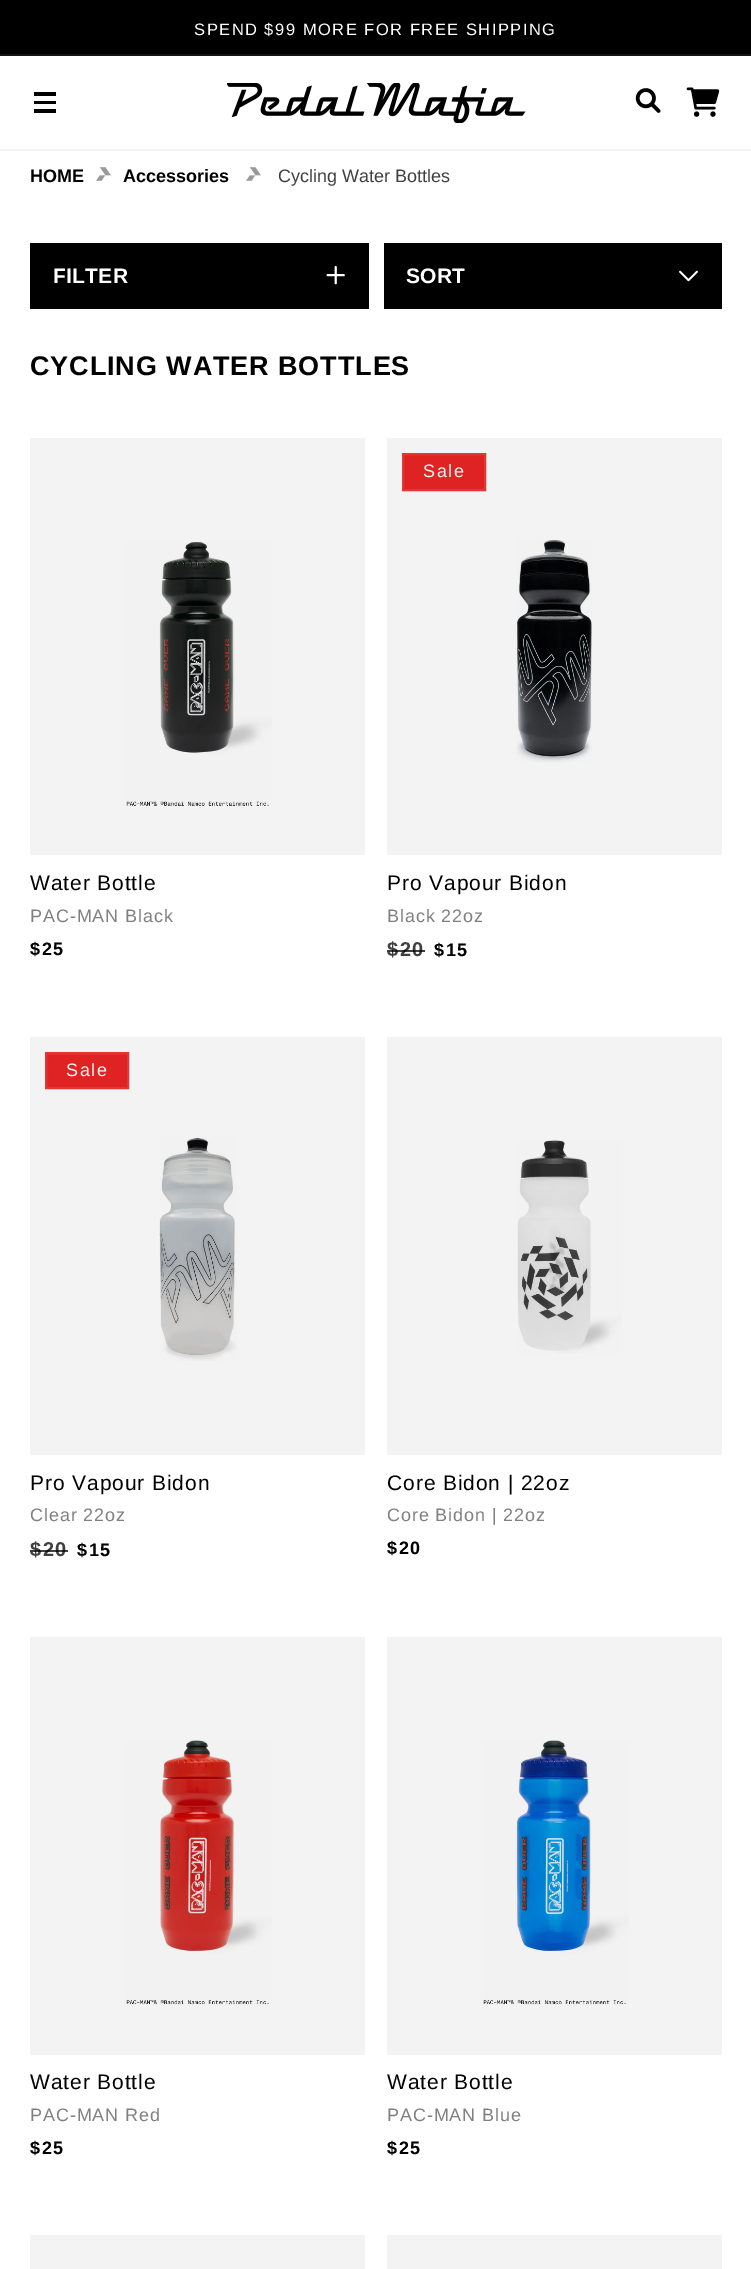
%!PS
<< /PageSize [751 2269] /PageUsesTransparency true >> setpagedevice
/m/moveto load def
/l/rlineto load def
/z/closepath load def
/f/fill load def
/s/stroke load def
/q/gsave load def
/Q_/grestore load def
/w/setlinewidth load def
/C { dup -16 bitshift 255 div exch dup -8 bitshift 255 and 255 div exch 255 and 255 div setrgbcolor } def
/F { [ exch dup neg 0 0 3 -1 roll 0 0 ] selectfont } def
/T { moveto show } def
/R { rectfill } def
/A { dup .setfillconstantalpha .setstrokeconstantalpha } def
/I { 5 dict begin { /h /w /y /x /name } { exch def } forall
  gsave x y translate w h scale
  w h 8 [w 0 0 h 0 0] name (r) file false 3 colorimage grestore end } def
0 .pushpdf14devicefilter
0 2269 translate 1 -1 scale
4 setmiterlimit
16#FFFFFF C
0 0 751 2269 R
16#000000 C
0 0 751 54 R
16#141414 C
0 54 751 2 R
/LiberationSans-Regular 16.5 F
16#FFFFFF C
194 35 m 1.5 0 (SPEND $99 MORE FOR FREE SHIPPING) ashow
16#F2F2F2 C
0 149 751 2 R
16#000000 C
34 92 22 4 R
34 101 22 3 R
34 109 22 4 R
(1.rgb) 227 83 299 40 I
(2.rgb) 635 88 26 25 I
(3.rgb) 686 87 34 30 I
/LiberationSans-Bold 18 F
(HOME) 30 182 T
(4.rgb) 96 167 15 14 I
(Accessories) 123 182 T
(4.rgb) 246 167 15 14 I
/LiberationSans-Regular 18 F
16#404040 C
(Cycling Water Bottles) 278 182 T
16#000000 C
30 243 339 66 R
/LiberationSans-Bold 21 F
16#FFFFFF C
53 283 m .25 0 (FILTER) ashow
(5.rgb) 326 265 19 20 I
16#000000 C
384 243 338 66 R
16#FFFFFF C
406 283 m .25 0 (SORT) ashow
(6.rgb) 679 270 19 12 I
/LiberationSans-Bold 27 F
16#000000 C
30 375 m .9 0 (CYCLING WATER BOTTLES) ashow
16#F3F3F3 C
30 438 335 417 R
(7.rgb) 126 542 146 264 I
/LiberationSans-Regular 21 F
16#000000 C
30 890 m .9 0 (Water Bottle) ashow
/LiberationSans-Regular 18 F
16#808080 C
30 922 m .9 0 (PAC-MAN Black) ashow
/LiberationSans-Bold 18 F
16#000000 C
30 955 m 1.5 0 ($25) ashow
16#F3F3F3 C
387 438 335 417 R
16#DF2222 C
403 454 m 82 0 l 0 36 l -82 0 l z q f Q_
16#E13737 C
2 w
s
/LiberationSans-Regular 18 F
16#F7F7F7 C
423 477 m 1.5 0 (Sale) ashow
(8.rgb) 516 539 76 224 I
/LiberationSans-Regular 21 F
16#000000 C
387 890 m .9 0 (Pro Vapour Bidon) ashow
/LiberationSans-Regular 18 F
16#808080 C
387 922 m .9 0 (Black 22oz) ashow
/LiberationSans-Bold 20 F
16#404040 C
387 956 m 1.5 0 ($20) ashow
0.75 A
16#000000 C
387 950 38 2 R
/LiberationSans-Bold 18 F
1 A
434 956 m 1.5 0 ($15) ashow
16#F3F3F3 C
30 1037 335 418 R
16#DF2222 C
46 1053 m 82 0 l 0 35 l -82 0 l z q f Q_
16#E13737 C
s
/LiberationSans-Regular 18 F
16#F7F7F7 C
66 1076 m 1.5 0 (Sale) ashow
(9.rgb) 159 1137 78 224 I
/LiberationSans-Regular 21 F
16#000000 C
30 1490 m .9 0 (Pro Vapour Bidon) ashow
/LiberationSans-Regular 18 F
16#808080 C
30 1521 m .9 0 (Clear 22oz) ashow
/LiberationSans-Bold 20 F
16#404040 C
30 1556 m 1.5 0 ($20) ashow
0.75 A
16#000000 C
30 1550 38 2 R
/LiberationSans-Bold 18 F
1 A
77 1556 m 1.5 0 ($15) ashow
16#F3F3F3 C
387 1037 335 418 R
(10.rgb) 517 1140 105 214 I
/LiberationSans-Regular 21 F
16#000000 C
387 1490 m .9 0 (Core Bidon | 22oz) ashow
/LiberationSans-Regular 18 F
16#808080 C
387 1521 m .9 0 (Core Bidon | 22oz) ashow
/LiberationSans-Bold 18 F
16#000000 C
387 1554 m 1.5 0 ($20) ashow
16#F3F3F3 C
30 1637 335 418 R
(11.rgb) 126 1740 146 265 I
/LiberationSans-Regular 21 F
16#000000 C
30 2089 m .9 0 (Water Bottle) ashow
/LiberationSans-Regular 18 F
16#808080 C
30 2121 m .9 0 (PAC-MAN Red) ashow
/LiberationSans-Bold 18 F
16#000000 C
30 2154 m 1.5 0 ($25) ashow
16#F3F3F3 C
387 1637 335 418 R
(12.rgb) 483 1740 146 265 I
/LiberationSans-Regular 21 F
16#000000 C
387 2089 m .9 0 (Water Bottle) ashow
/LiberationSans-Regular 18 F
16#808080 C
387 2121 m .9 0 (PAC-MAN Blue) ashow
/LiberationSans-Bold 18 F
16#000000 C
387 2154 m 1.5 0 ($25) ashow
16#F3F3F3 C
30 2235 335 34 R
387 2235 335 34 R
.poppdf14devicefilter showpage
